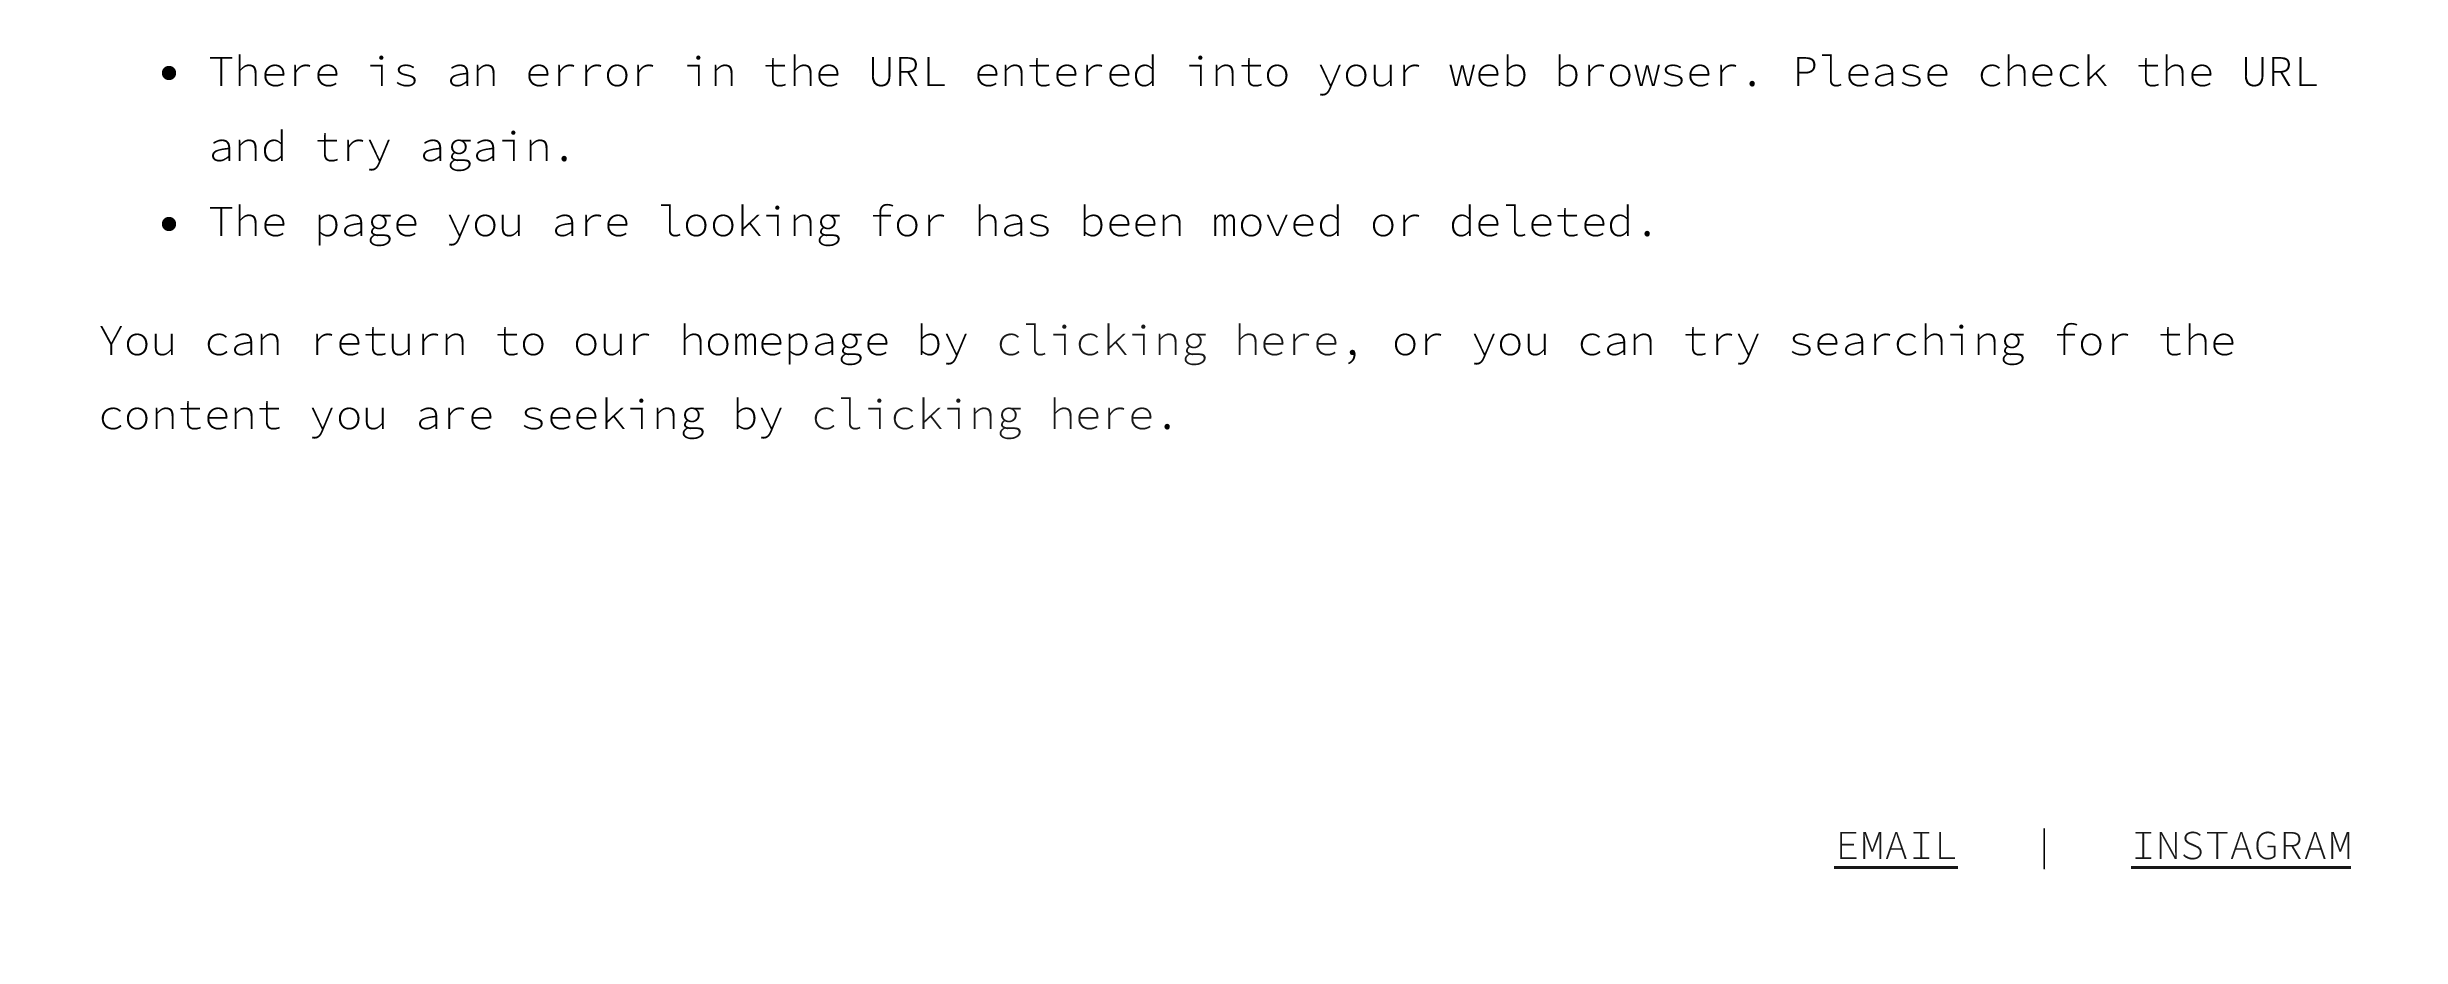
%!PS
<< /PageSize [2448 984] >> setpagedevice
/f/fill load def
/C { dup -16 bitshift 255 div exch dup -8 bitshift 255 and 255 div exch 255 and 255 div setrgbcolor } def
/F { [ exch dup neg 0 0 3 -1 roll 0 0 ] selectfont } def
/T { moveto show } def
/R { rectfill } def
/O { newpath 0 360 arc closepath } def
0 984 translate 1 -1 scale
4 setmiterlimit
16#FFFFFF C
0 0 2448 984 R
16#000000 C
169 73 7 O f
/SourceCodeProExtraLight-Light 44 F
(There is an error in the URL entered into your web browser. Please check the URL) 208 86 T
(and try again.) 208 161 T
169 224 7 O f
(The page you are looking for has been moved or deleted.) 208 236 T
(You can return to our homepage by) 98 355 T
16#171717 C
(clicking here) 996 355 T
16#000000 C
(, or you can try searching for the) 1339 355 T
(content you are seeking by) 98 429 T
16#171717 C
(clicking here) 811 429 T
16#000000 C
(.) 1154 429 T
/SourceCodeProExtraLight-Light 41 F
16#171717 C
(EMAIL) 1835 859 T
1834 866 124 3 R
16#000000 C
(|) 2032 859 T
16#171717 C
(INSTAGRAM) 2131 859 T
2131 866 220 3 R
showpage
